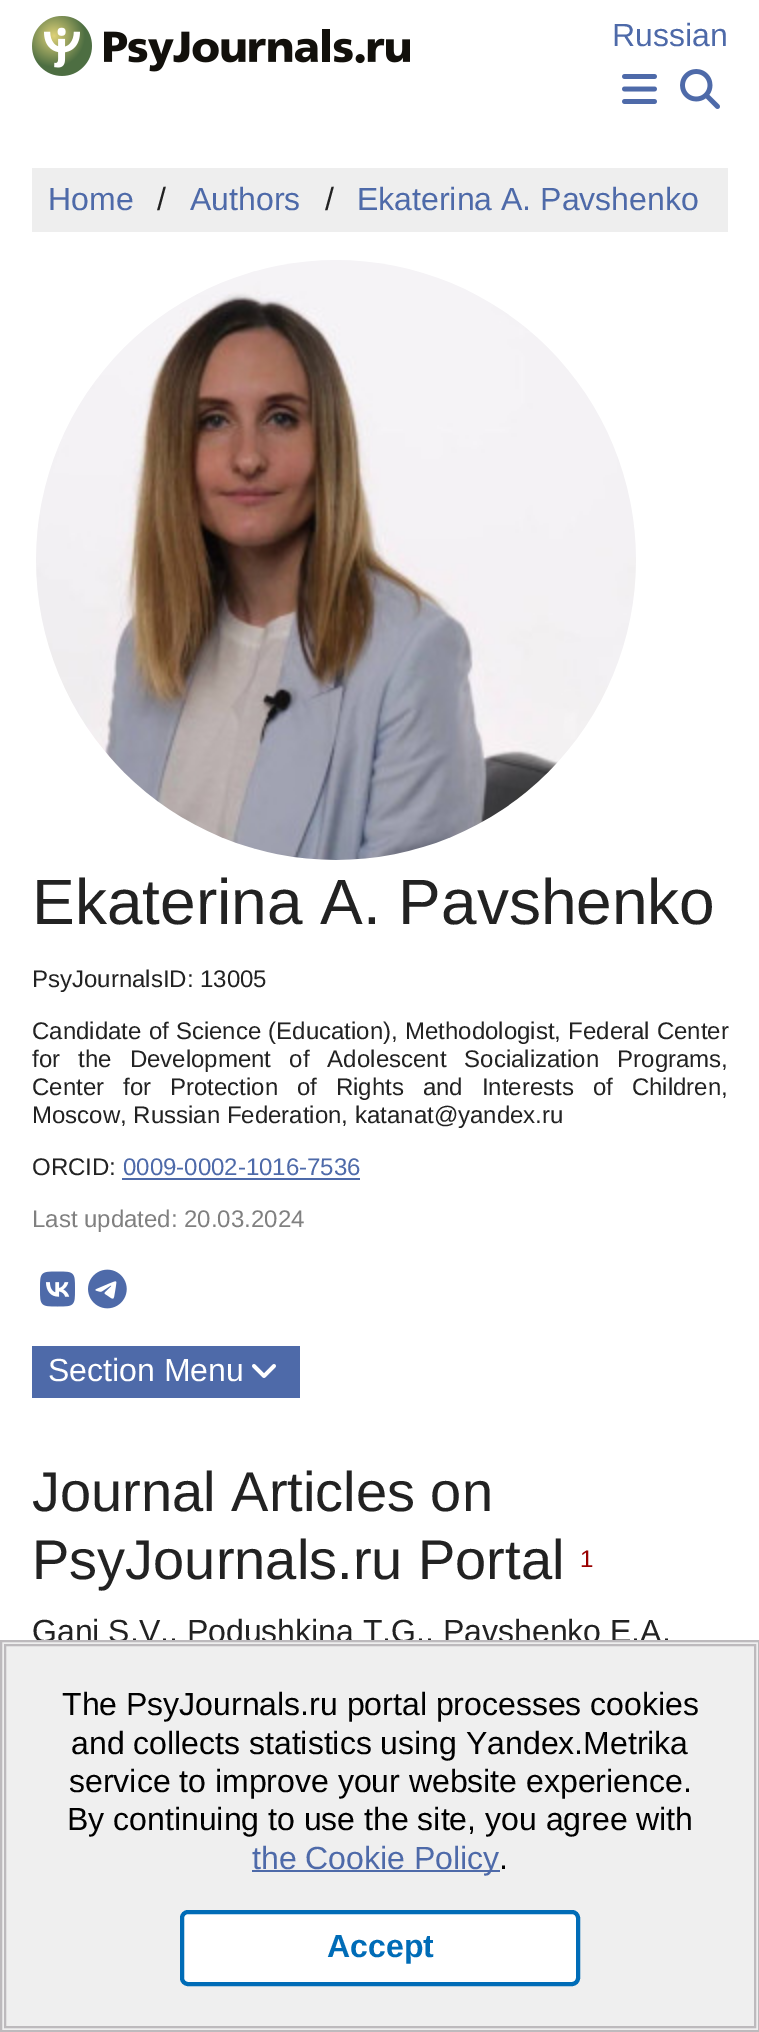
%!PS
<< /PageSize [759 2032] >> setpagedevice
/m/moveto load def
/l/rlineto load def
/z/closepath load def
/f/fill load def
/s/stroke load def
/q/gsave load def
/Q_/grestore load def
/w/setlinewidth load def
/C { dup -16 bitshift 255 div exch dup -8 bitshift 255 and 255 div exch 255 and 255 div setrgbcolor } def
/F { [ exch dup neg 0 0 3 -1 roll 0 0 ] selectfont } def
/T { moveto show } def
/R { rectfill } def
/Q { 5 dict begin { /r /h /w /y /x } { exch def } forall
  x r add y moveto x w add y 2 copy h add r arct x w add y h add x 1 index r arct
  x y h add x y r arct x y 2 copy exch w add exch r arct closepath end } def
/I { 5 dict begin { /h /w /y /x /name } { exch def } forall
  gsave x y translate w h scale
  w h 8 [w 0 0 h 0 0] name (r) file false 3 colorimage grestore end } def
0 2032 translate 1 -1 scale
4 setmiterlimit
16#FFFFFF C
0 0 759 2032 R
(1.rgb) 32 16 378 60 I
/LiberationSans-Regular 32 F
16#4E6AA9 C
(Russian) 612 46 T
(2.rgb) 622 74 35 30 I
(3.rgb) 680 69 40 40 I
16#EEEEEE C
32 168 696 64 R
16#4E6AA9 C
(Home) 48 210 T
16#222222 C
(/) 157 210 T
16#4E6AA9 C
(Authors) 190 210 T
16#222222 C
(/) 325 210 T
16#4E6AA9 C
(Ekaterina A. Pavshenko) 357 210 T
(4.rgb) 36 260 600 600 I
/LiberationSans-Regular 64 F
16#222222 C
(Ekaterina A. Pavshenko) 32 924 T
/LiberationSans-Regular 24 F
(PsyJournalsID: 13005) 32 987 T
32 1039 m .5 0 32 (Candidate of Science \(Education\), Methodologist, Federal Center) widthshow
32 1067 m 11.5 0 32 (for the Development of Adolescent Socialization Programs,) widthshow
32 1095 m 12.25 0 32 (Center for Protection of Rights and Interests of Children,) widthshow
(Moscow, Russian Federation, katanat@yandex.ru) 32 1123 T
(ORCID:) 32 1175 T
16#4E6AA9 C
(0009-0002-1016-7536) 123 1175 T
122 1178 238 2 R
16#808080 C
(Last updated: 20.03.2024) 32 1227 T
(5.rgb) 40 1271 35 36 I
(6.rgb) 88 1269 39 40 I
16#4E6AA9 C
32 1346 268 52 R
/LiberationSans-Regular 32 F
16#FFFFFF C
(Section Menu) 48 1381 T
(7.rgb) 252 1364 24 14 I
/LiberationSans-Regular 56 F
16#222222 C
(Journal Articles on) 32 1511 T
(PsyJournals.ru Portal) 32 1579 T
/LiberationSans-Regular 24 F
16#990000 C
(1) 580 1567 T
/LiberationSans-Regular 32 F
16#222222 C
(Gani S.V., Podushkina T.G., Pavshenko E.A.) 32 1642 T
16#EFEFEF C
1 1641 m 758 0 l 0 390 l -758 0 l z q f Q_
16#BDBABD C
2 w
s
5 1645 750 382 rectstroke
16#000000 C
(The PsyJournals.ru portal processes cookies) 62 1715 T
(and collects statistics using Yandex.Metrika) 71 1754 T
(service to improve your website experience.) 69 1792 T
(By continuing to use the site, you agree with) 67 1830 T
16#4E6AA9 C
252 1870 248 2 R
(the Cookie Policy) 252 1869 T
16#000000 C
(.) 499 1869 T
16#FFFFFF C
182 1912 396 72 6 Q q f Q_
16#006CB7 C
4 w
s
/LiberationSans-Bold 32 F
(Accept) 327 1957 T
showpage
